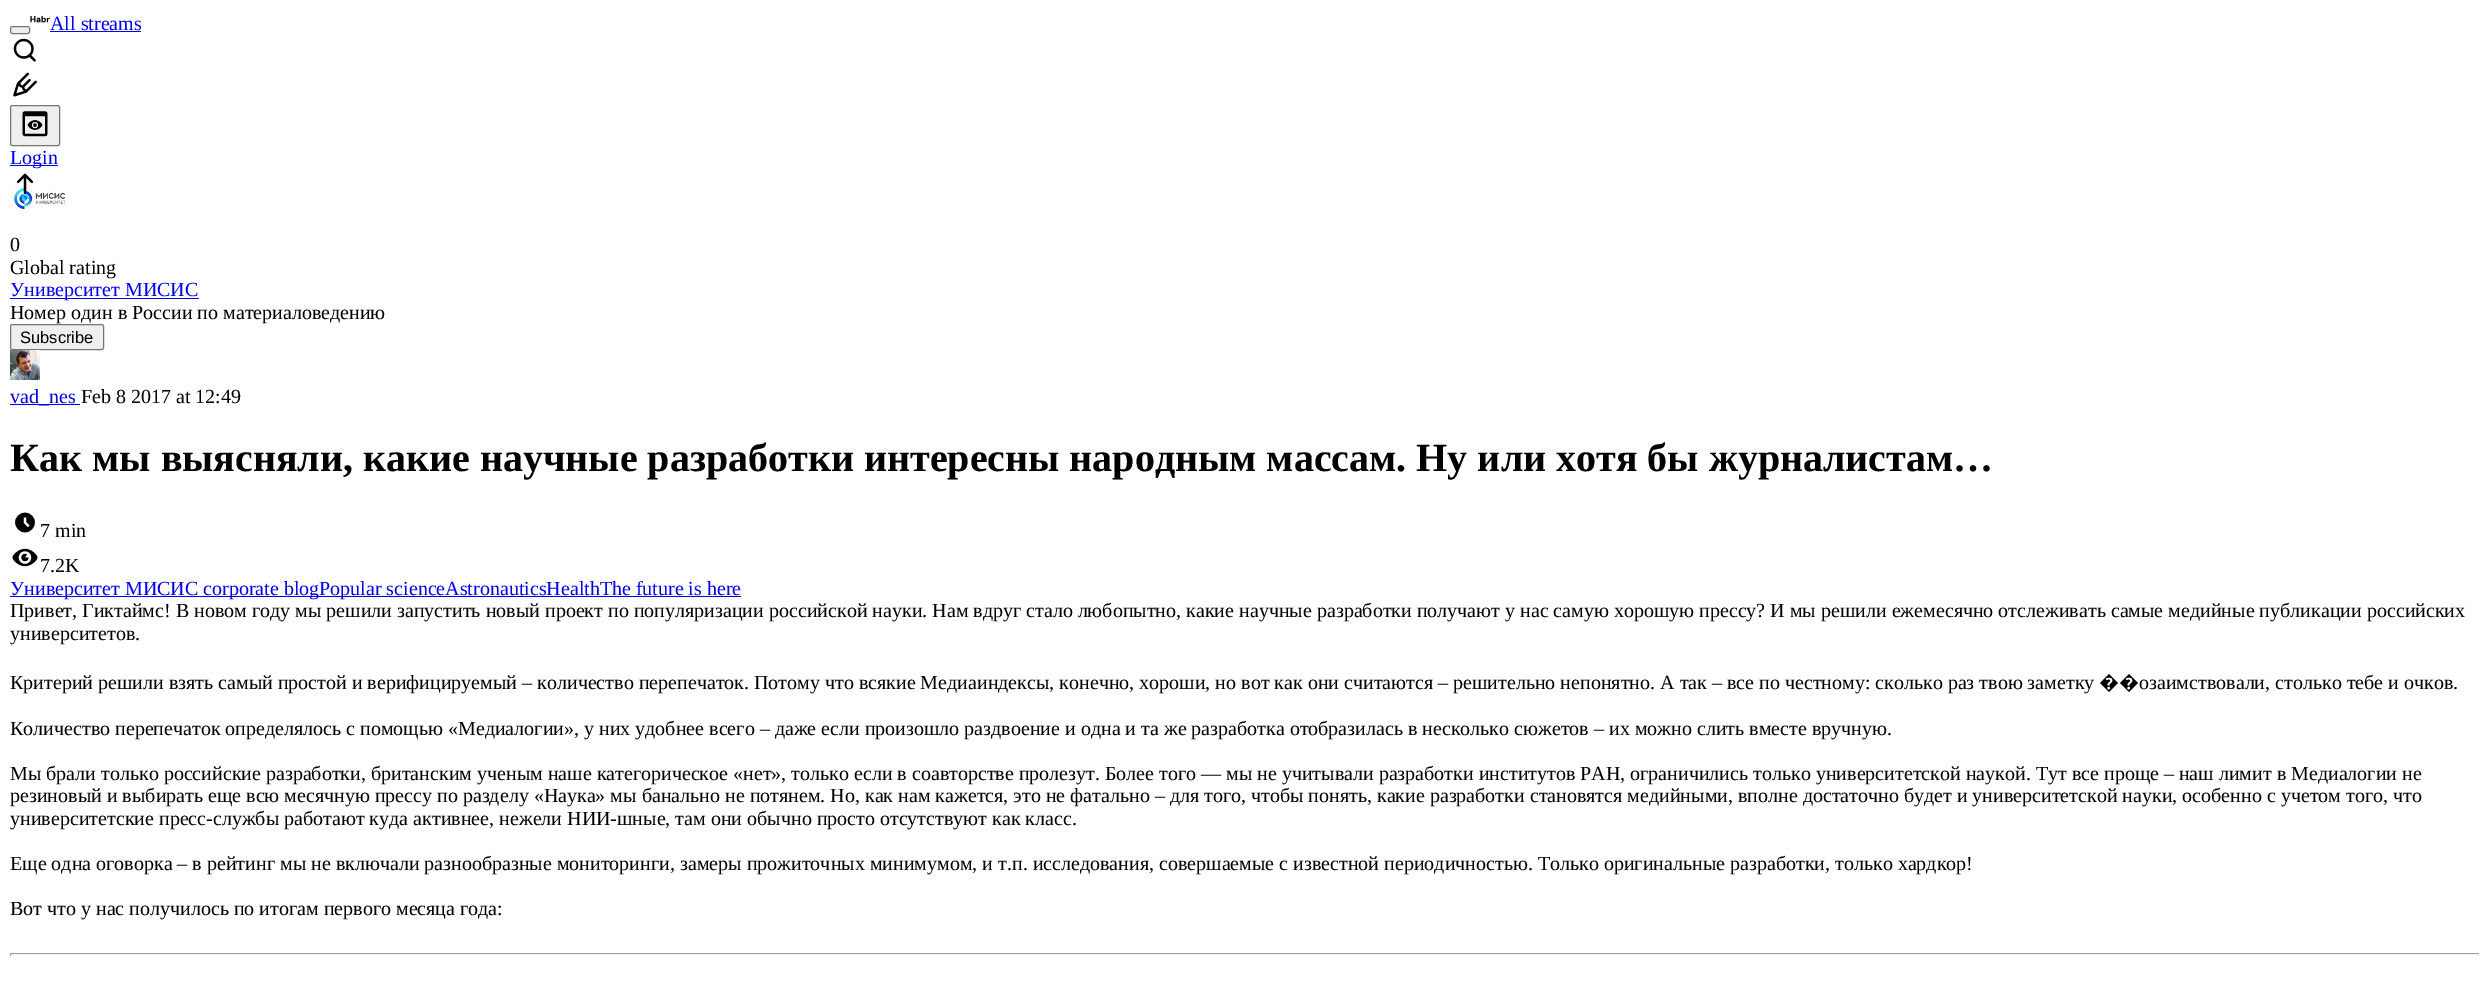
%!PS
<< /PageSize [2489 990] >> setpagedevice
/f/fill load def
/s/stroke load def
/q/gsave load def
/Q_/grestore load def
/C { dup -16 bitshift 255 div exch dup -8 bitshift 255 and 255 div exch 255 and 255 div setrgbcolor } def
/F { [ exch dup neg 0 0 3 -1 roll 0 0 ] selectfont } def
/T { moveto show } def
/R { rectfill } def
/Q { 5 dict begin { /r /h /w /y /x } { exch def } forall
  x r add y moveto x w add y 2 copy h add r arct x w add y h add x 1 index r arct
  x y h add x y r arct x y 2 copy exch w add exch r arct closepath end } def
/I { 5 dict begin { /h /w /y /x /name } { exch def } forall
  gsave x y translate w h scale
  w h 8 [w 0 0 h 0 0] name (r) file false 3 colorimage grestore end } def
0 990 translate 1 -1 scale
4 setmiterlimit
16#FFFFFF C
0 0 2489 990 R
16#EFEFEF C
10.5 26.5 19 7 2 Q q f Q_
16#767676 C
s
(1.rgb) 30 16 20 7 I
/LiberationSerif-Regular 20 F
16#0000EE C
(All streams) 50 30 T
50 31 91 1 R
(2.rgb) 13 38 23 24 I
(3.rgb) 13 72 24 25 I
16#EFEFEF C
10.5 105.5 49 40 2 Q q f Q_
16#767676 C
s
(4.rgb) 22 111 26 26 I
16#0000EE C
10 165 48 1 R
(Login) 10 164 T
(6.rgb) 13 168 53 43 I
(5.rgb) 16 173 18 21 I
16#000000 C
(0) 10 251 T
(Global rating) 10 274 T
16#0000EE C
10 298 189 1 R
(Университет МИСИС) 10 296 T
16#000000 C
(Номер один в России по материаловедению) 10 319 T
16#EFEFEF C
10.5 324.5 93 25 2 Q q f Q_
16#767676 C
s
/LiberationSans-Regular 16.5 F
16#000000 C
(Subscribe) 20 343 T
(7.rgb) 10 350 30 30 I
16#0000EE C
10 404 70 1 R
/LiberationSerif-Regular 20 F
(vad_nes) 10 403 T
16#000000 C
(Feb 8 2017 at 12:49) 81 403 T
/LiberationSerif-Bold 40 F
(Как мы выясняли, какие научные разработки интересны народным массам. Ну или хотя бы журналистам…) 10 471 T
(8.rgb) 15 512 20 21 I
/LiberationSerif-Regular 20 F
(7 min) 40 537 T
(9.rgb) 12 548 26 19 I
(7.2K) 40 572 T
16#0000EE C
10 596 731 1 R
(Университет МИСИС corporate blogPopular scienceAstronauticsHealthThe future is here) 10 595 T
16#000000 C
(Привет, Гиктаймс! В новом году мы решили запустить новый проект по популяризации российской науки. Нам вдруг стало любопытно, какие научные разработки получают у нас самую хорошую прессу? И мы решили ежемесячно отслеживать самые медийные публикации российских) 10 617 T
(университетов.) 10 640 T
(Критерий решили взять самый простой и верифицируемый – количество перепечаток. Потому что всякие Медиаиндексы, конечно, хороши, но вот как они считаются – решительно непонятно. А так – все по честному: сколько раз твою заметку) 10 689 T
/NotoSans-Regular 20 F
(��) 2099 689 T
/LiberationSerif-Regular 20 F
(озаимствовали, столько тебе и очков.) 2139 689 T
(Количество перепечаток определялось с помощью «Медиалогии», у них удобнее всего – даже если произошло раздвоение и одна и та же разработка отобразилась в несколько сюжетов – их можно слить вместе вручную.) 10 735 T
(Мы брали только российские разработки, британским ученым наше категорическое «нет», только если в соавторстве пролезут. Более того — мы не учитывали разработки институтов РАН, ограничились только университетской наукой. Тут все проще – наш лимит в Медиалогии не) 10 780 T
(резиновый и выбирать еще всю месячную прессу по разделу «Наука» мы банально не потянем. Но, как нам кажется, это не фатально – для того, чтобы понять, какие разработки становятся медийными, вполне достаточно будет и университетской науки, особенно с учетом того, что) 10 802 T
(университетские пресс-службы работают куда активнее, нежели НИИ-шные, там они обычно просто отсутствуют как класс.) 10 825 T
(Еще одна оговорка – в рейтинг мы не включали разнообразные мониторинги, замеры прожиточных минимумом, и т.п. исследования, совершаемые с известной периодичностью. Только оригинальные разработки, только хардкор!) 10 870 T
(Вот что у нас получилось по итогам первого месяца года:) 10 915 T
16#9F9F9F C
10 953 2470 1 R
16#EEEEEE C
2479 953 1 3 R
10 954 2470 1 R
16#9F9F9F C
10 953 1 3 R
showpage
